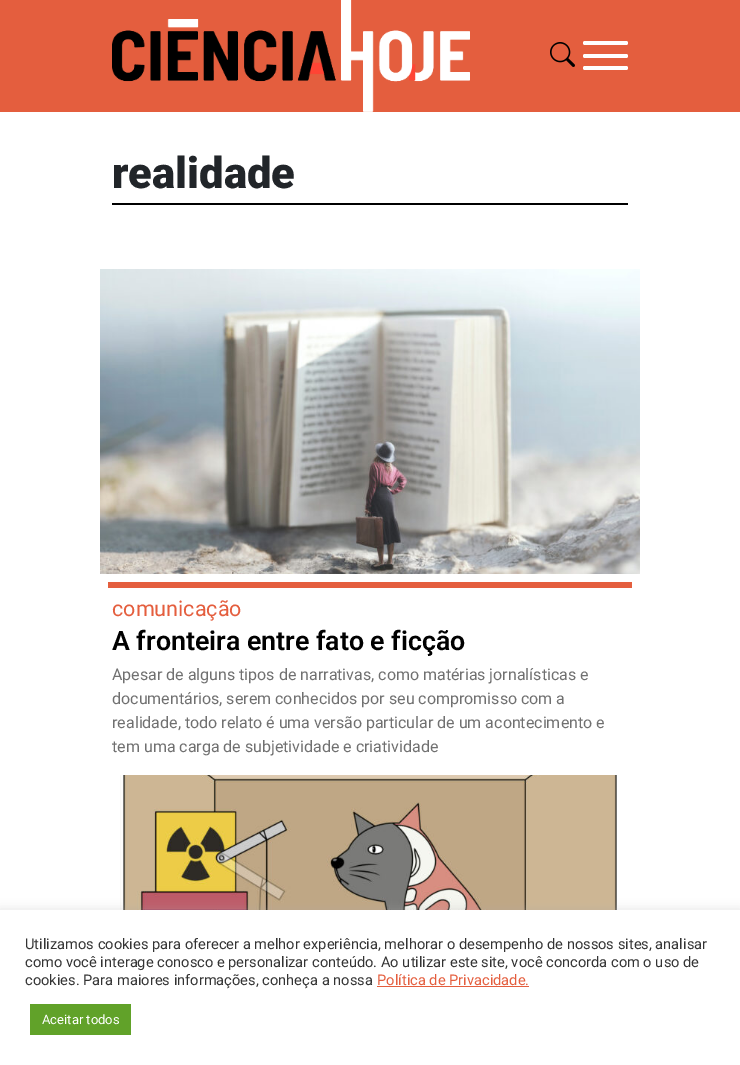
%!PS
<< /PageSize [740 1065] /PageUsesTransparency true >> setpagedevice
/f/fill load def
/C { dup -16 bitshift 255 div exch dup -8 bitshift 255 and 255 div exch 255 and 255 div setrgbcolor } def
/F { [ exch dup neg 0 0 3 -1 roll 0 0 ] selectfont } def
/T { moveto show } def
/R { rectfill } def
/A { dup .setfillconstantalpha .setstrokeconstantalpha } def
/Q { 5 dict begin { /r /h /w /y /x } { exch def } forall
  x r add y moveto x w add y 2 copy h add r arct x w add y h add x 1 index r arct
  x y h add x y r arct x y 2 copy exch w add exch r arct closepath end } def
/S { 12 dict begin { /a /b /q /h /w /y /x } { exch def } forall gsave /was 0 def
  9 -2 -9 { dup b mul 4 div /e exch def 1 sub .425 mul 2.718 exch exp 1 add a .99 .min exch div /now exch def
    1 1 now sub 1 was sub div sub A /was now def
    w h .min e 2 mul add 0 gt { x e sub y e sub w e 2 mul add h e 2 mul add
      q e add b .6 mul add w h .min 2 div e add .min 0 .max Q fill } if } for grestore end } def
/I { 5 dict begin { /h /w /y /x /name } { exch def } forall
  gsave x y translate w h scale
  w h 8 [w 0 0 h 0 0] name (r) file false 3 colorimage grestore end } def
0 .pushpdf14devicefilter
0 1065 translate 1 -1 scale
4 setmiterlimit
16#FFFFFF C
0 0 740 1065 R
16#E45E3E C
0 0 740 112 R
(1.rgb) 112 0 358 112 I
(2.rgb) 550 42 25 25 I
16#FFFFFF C
583 41 45 4 2 Q f
583 54 45 4 2 Q f
583 66 45 4 2 Q f
16#000000 C
112 203 516 2 R
/Roboto-Black 43.5 F
16#212529 C
(realidade) 112 188 T
(3.rgb) 100 269 540 305 I
16#E45E3E C
108 582 524 6 R
/Roboto-Regular 21.5 F
(comunicação) 112 616 T
/Roboto-SemiBold 26.75 F
16#000000 C
(A fronteira entre fato e ficção) 112 650 T
/Roboto-Regular 16 F
16#707070 C
(Apesar de alguns tipos de narrativas, como matérias jornalísticas e) 112 680 T
(documentários, serem conhecidos por seu compromisso com a) 112 704 T
(realidade, todo relato é uma versão particular de um acontecimento e) 112 728 T
(tem uma carga de subjetividade e criatividade) 112 752 T
(4.rgb) 120 775 497 135 I
16#ACABAB C
0 909 740 155 0 5 .3 S
16#FFFFFF C
0 910 740 155 R
/Roboto-Regular 14.65 F
16#333333 C
(Utilizamos cookies para oferecer a melhor experiência, melhorar o desempenho de nossos sites, analisar) 25 949 T
(como você interage conosco e personalizar conteúdo. Ao utilizar este site, você concorda com o uso de) 25 967 T
(cookies. Para maiores informações, conheça a nossa) 25 985 T
16#E45E3E C
(Política de Privacidade.) 377 985 T
377 986 152 1 R
16#61A229 C
30 1004 101 31 R
/Roboto-Regular 13 F
16#FFFFFF C
(Aceitar todos) 42 1024 T
.poppdf14devicefilter showpage
